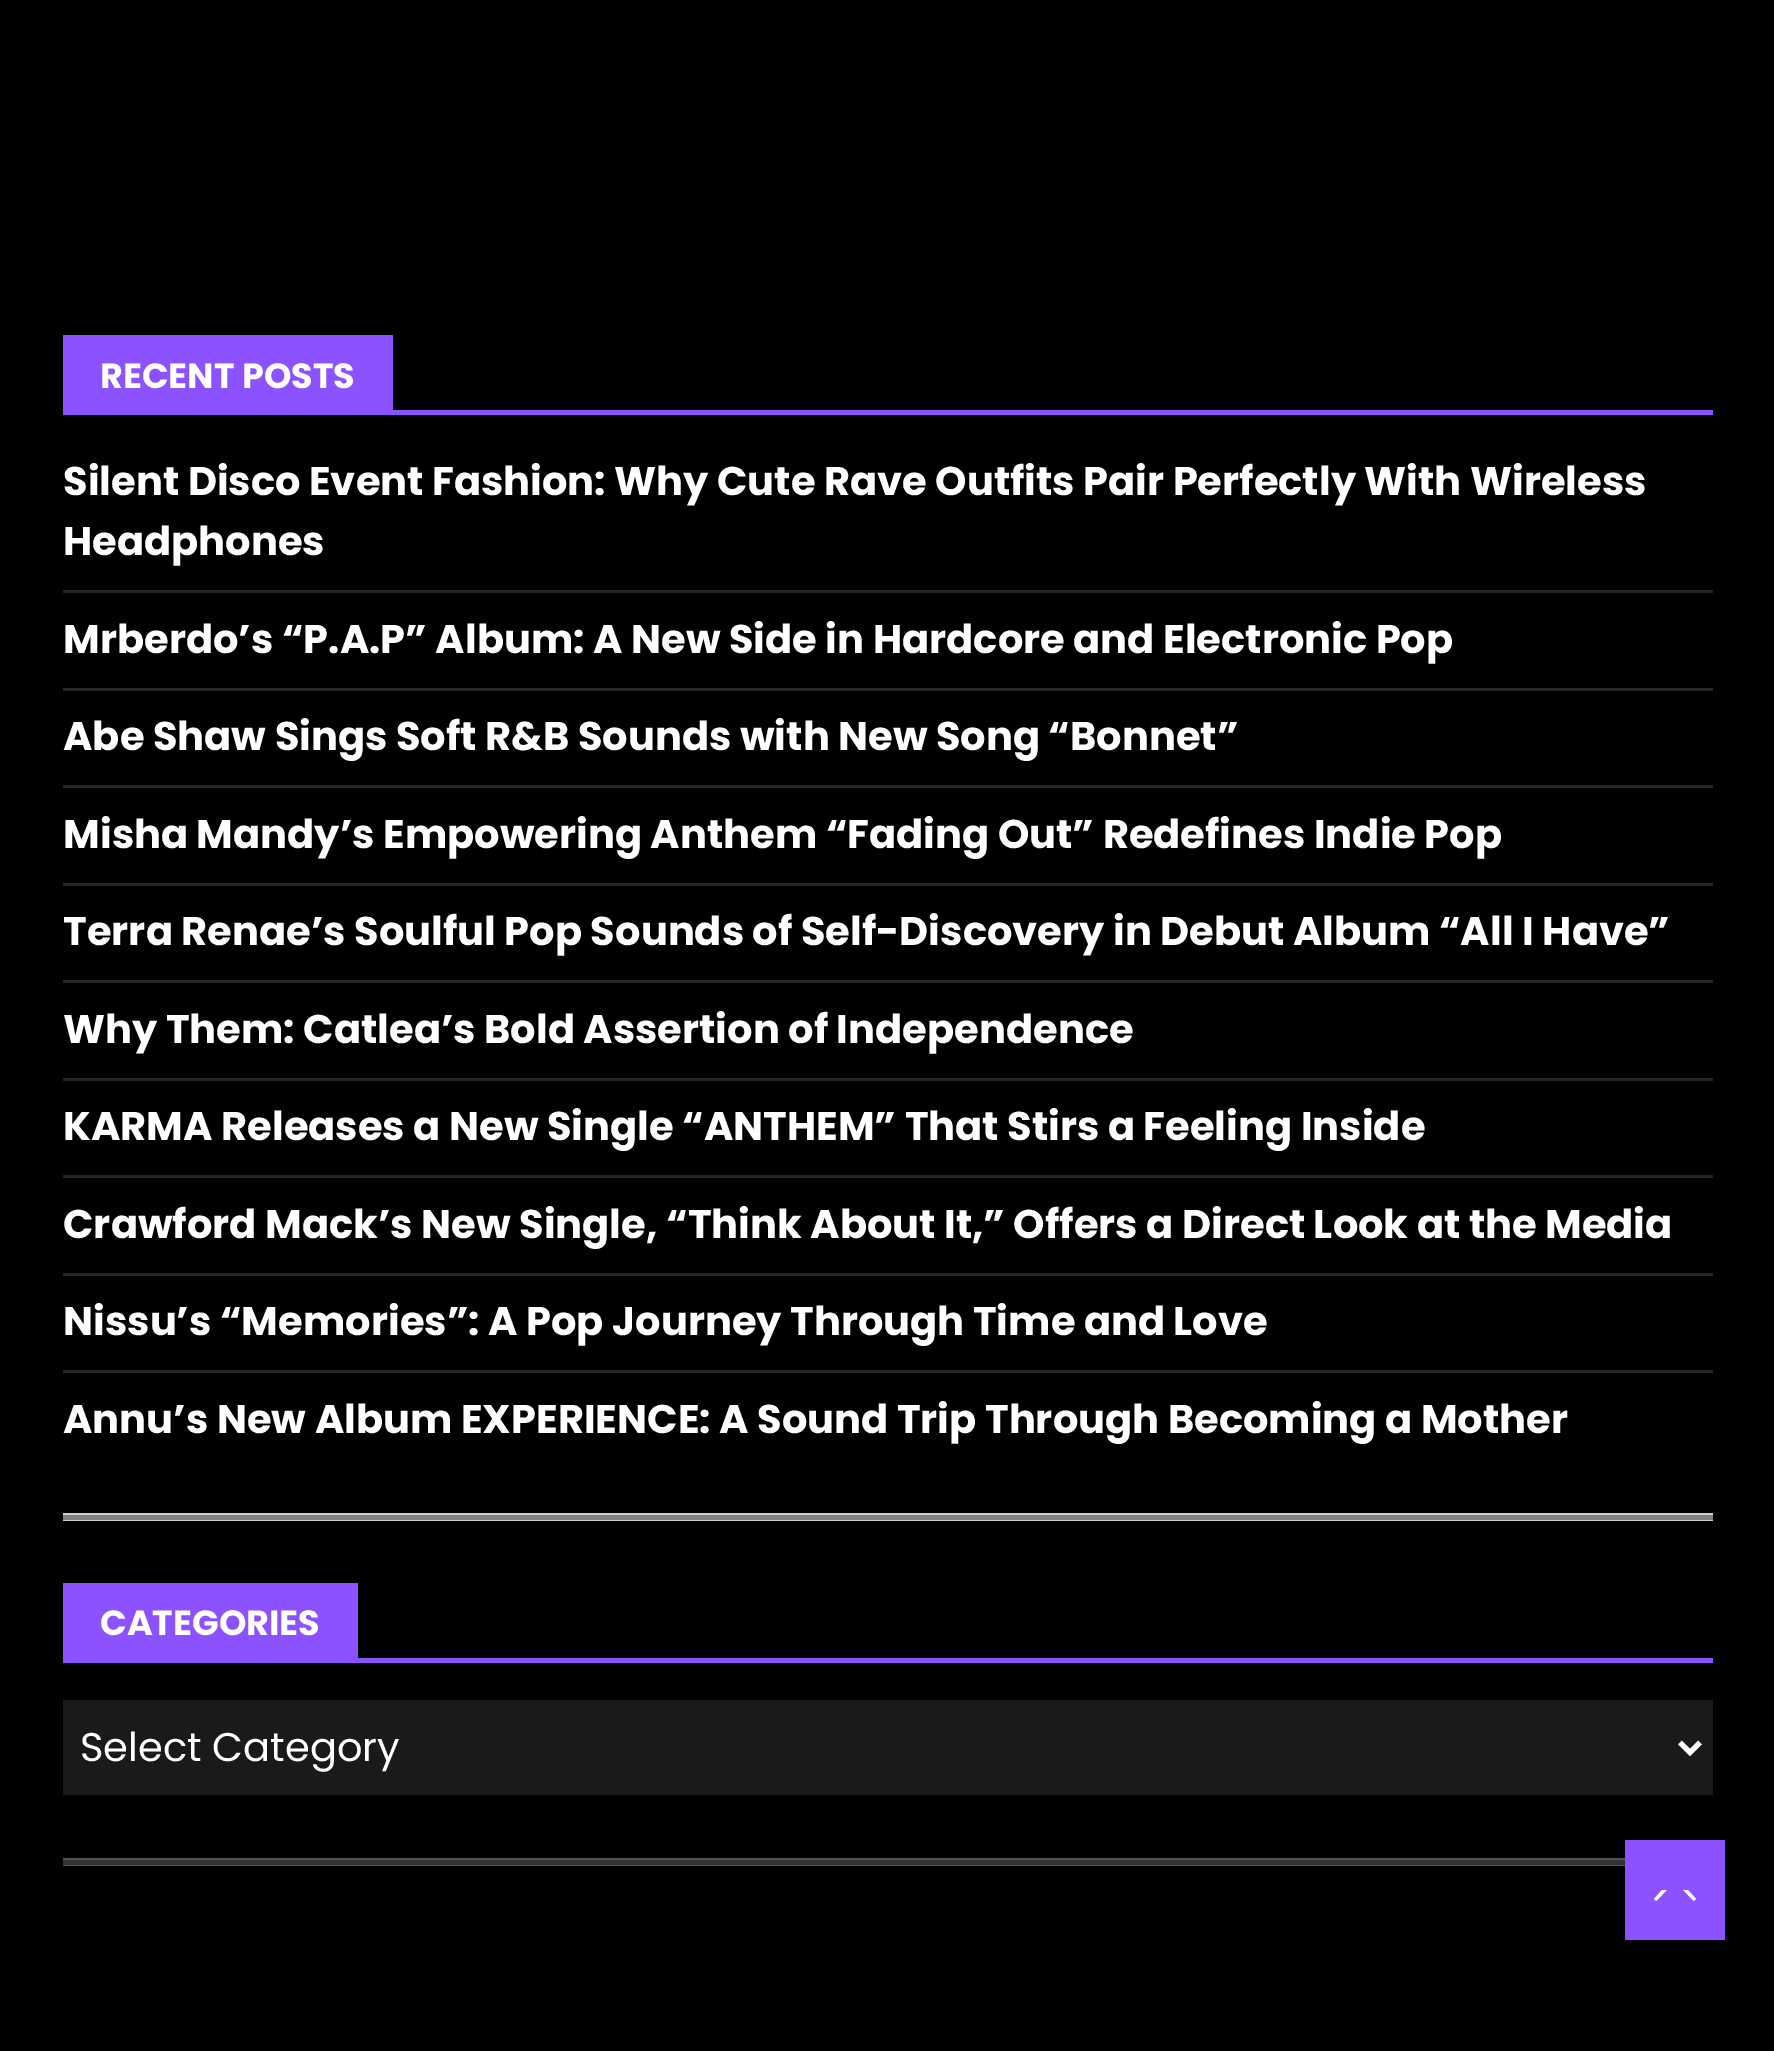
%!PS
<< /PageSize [1774 2051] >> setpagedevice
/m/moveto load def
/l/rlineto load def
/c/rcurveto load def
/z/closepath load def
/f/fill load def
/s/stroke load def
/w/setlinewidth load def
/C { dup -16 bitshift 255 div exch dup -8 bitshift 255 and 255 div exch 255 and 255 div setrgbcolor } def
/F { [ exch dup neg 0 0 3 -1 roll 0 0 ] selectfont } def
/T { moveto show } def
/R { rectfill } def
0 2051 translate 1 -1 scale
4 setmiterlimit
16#000000 C
0 0 1774 2051 R
16#8C52FF C
63 410 1650 5 R
63 335 330 75 R
/Poppins-Bold 35 F
16#FFFFFF C
(RECENT POSTS) 100 388 T
16#262626 C
63 590 1650 3 R
/Poppins-Bold 40 F
16#FFFFFF C
(Silent Disco Event Fashion: Why Cute Rave Outfits Pair Perfectly With Wireless) 63 495 T
(Headphones) 63 555 T
16#262626 C
63 688 1650 3 R
16#FFFFFF C
(Mrberdo’s “P.A.P” Album: A New Side in Hardcore and Electronic Pop) 63 653 T
16#262626 C
63 785 1650 3 R
16#FFFFFF C
(Abe Shaw Sings Soft R&B Sounds with New Song “Bonnet”) 63 750 T
16#262626 C
63 883 1650 3 R
16#FFFFFF C
(Misha Mandy’s Empowering Anthem “Fading Out” Redefines Indie Pop) 63 848 T
16#262626 C
63 980 1650 3 R
16#FFFFFF C
(Terra Renae’s Soulful Pop Sounds of Self-Discovery in Debut Album “All I Have”) 63 945 T
16#262626 C
63 1078 1650 3 R
16#FFFFFF C
(Why Them: Catlea’s Bold Assertion of Independence) 63 1043 T
16#262626 C
63 1175 1650 3 R
16#FFFFFF C
(KARMA Releases a New Single “ANTHEM” That Stirs a Feeling Inside) 63 1140 T
16#262626 C
63 1273 1650 3 R
16#FFFFFF C
(Crawford Mack’s New Single, “Think About It,” Offers a Direct Look at the Media) 63 1238 T
16#262626 C
63 1370 1650 3 R
16#FFFFFF C
(Nissu’s “Memories”: A Pop Journey Through Time and Love) 63 1335 T
(Annu’s New Album EXPERIENCE: A Sound Trip Through Becoming a Mother) 63 1433 T
16#CCCCCC C
63 1513 1650 8 R
16#808080 C
63 1515 1650 5 R
16#8C52FF C
63 1658 1650 5 R
63 1583 295 75 R
/Poppins-Bold 35 F
16#FFFFFF C
(CATEGORIES) 100 1635 T
16#1A1A1A C
63 1700 1650 95 R
16#FFFFFF C
5 w
1680 1742.5 m 10 10 l 10 -10 l s
/Poppins-Regular 40 F
(Select Category) 80 1761 T
16#525252 C
63 1858 1562 8 R
16#333333 C
63 1860 1562 5 R
16#8C52FF C
1625 1840 100 100 R
16#FFFFFF C
1696 1899 m -5 5 -14 3 -21 3 c -7 0 -16 2 -21 -3 c 8 -9 l 26 0 l z f
16#8C52FF C
1700 1908 m -50 0 l 25 -26 l z f
showpage
